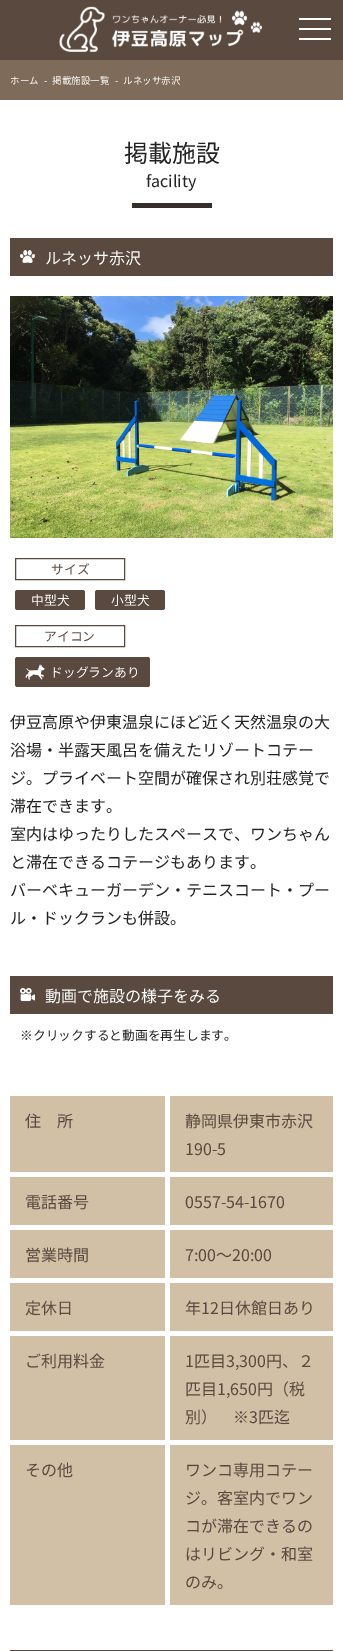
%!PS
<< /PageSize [343 1651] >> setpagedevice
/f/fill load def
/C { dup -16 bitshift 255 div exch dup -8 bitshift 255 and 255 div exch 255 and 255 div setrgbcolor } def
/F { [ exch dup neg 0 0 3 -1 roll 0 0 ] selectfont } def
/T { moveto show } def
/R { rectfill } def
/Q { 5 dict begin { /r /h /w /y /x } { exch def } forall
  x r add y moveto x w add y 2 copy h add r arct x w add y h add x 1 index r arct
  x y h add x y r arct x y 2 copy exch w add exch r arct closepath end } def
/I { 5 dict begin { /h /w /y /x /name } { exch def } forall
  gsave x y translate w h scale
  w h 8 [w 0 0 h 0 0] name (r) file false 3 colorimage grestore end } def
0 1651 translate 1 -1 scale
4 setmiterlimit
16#59493F C
0 0 343 1651 R
(1.rgb) 59 6 203 46 I
16#FFFFFF C
299 28 32 2 R
299 18 32 2 R
299 38 32 2 R
16#7E6B5A C
0 60 343 40 R
/NotoSansJP-Regular 9.5 F
16#FFFFFF C
(ホーム) 10 84 T
(-) 44 84 T
(掲載施設一覧) 52 84 T
(-) 115 84 T
(ルネッサ赤沢) 123 84 T
0 100 343 1551 R
/NotoSansJP-Regular 24 F
16#222222 C
(掲載施設) 124 162 T
/NotoSansJP-Regular 16 F
(facility) 146 187 T
16#362E2B C
132 203 80 5 R
16#59493F C
10 238 323 38 R
(2.rgb) 20 250 15 13 I
16#FFFFFF C
(ルネッサ赤沢) 45 264 T
(3.rgb) 10 296 323 242 I
16#59493F C
15.5 558.5 109 21 rectstroke
/NotoSansJP-Regular 12.75 F
(サイズ) 51 574 T
15 590 70 20 2.5 Q f
16#FFFFFF C
(中型犬) 31 605 T
16#59493F C
95 590 70 20 2.5 Q f
16#FFFFFF C
(小型犬) 111 605 T
16#59493F C
15.5 625.5 109 21 rectstroke
(アイコン) 44 641 T
15 657 135 30 2.5 Q f
(4.rgb) 25 664 20 16 I
16#FFFFFF C
(ドッグランあり) 50 677 T
/NotoSansJP-Regular 16 F
16#222222 C
(伊豆高原や伊東温泉にほど近く天然温泉の大) 10 728 T
(浴場・半露天風呂を備えたリゾートコテー) 10 756 T
(ジ。プライベート空間が確保され別荘感覚で) 10 784 T
(滞在できます。) 10 812 T
(室内はゆったりしたスペースで、ワンちゃん) 10 840 T
(と滞在できるコテージもあります。) 10 868 T
(バーベキューガーデン・テニスコート・プー) 10 896 T
(ル・ドックランも併設。) 10 924 T
16#59493F C
10 976 323 38 R
(5.rgb) 20 988 15 14 I
16#FFFFFF C
(動画で施設の様子をみる) 45 1002 T
/NotoSansJP-Regular 12.75 F
16#222222 C
(※クリックすると動画を再生します。) 20 1040 T
16#D1C0A5 C
10 1096 323 76 R
16#FFFFFF C
165 1096 5 76 R
/NotoSansJP-Regular 16 F
16#59493F C
(住　所) 25 1127 T
(静岡県伊東市赤沢) 185 1127 T
(190-5) 185 1155 T
16#D1C0A5 C
10 1177 323 48 R
16#FFFFFF C
165 1177 5 48 R
16#59493F C
(電話番号) 25 1208 T
(0557-54-1670) 185 1208 T
16#D1C0A5 C
10 1230 323 48 R
16#FFFFFF C
165 1230 5 48 R
16#59493F C
(営業時間) 25 1261 T
(7:00～20:00) 185 1261 T
16#D1C0A5 C
10 1283 323 48 R
16#FFFFFF C
165 1283 5 48 R
16#59493F C
(定休日) 25 1314 T
(年12日休館日あり) 185 1314 T
16#D1C0A5 C
10 1336 323 104 R
16#FFFFFF C
165 1336 5 104 R
16#59493F C
(ご利用料金) 25 1367 T
(1匹目3,300円、２) 185 1367 T
(匹目1,650円（税) 185 1395 T
(別）　※3匹迄) 185 1423 T
16#D1C0A5 C
10 1445 323 160 R
16#FFFFFF C
165 1445 5 160 R
16#59493F C
(その他) 25 1476 T
(ワンコ専用コテー) 185 1476 T
(ジ。客室内でワン) 185 1504 T
(コが滞在できるの) 185 1532 T
(はリビング・和室) 185 1560 T
(のみ。) 185 1588 T
10 1650 323 1 R
showpage
